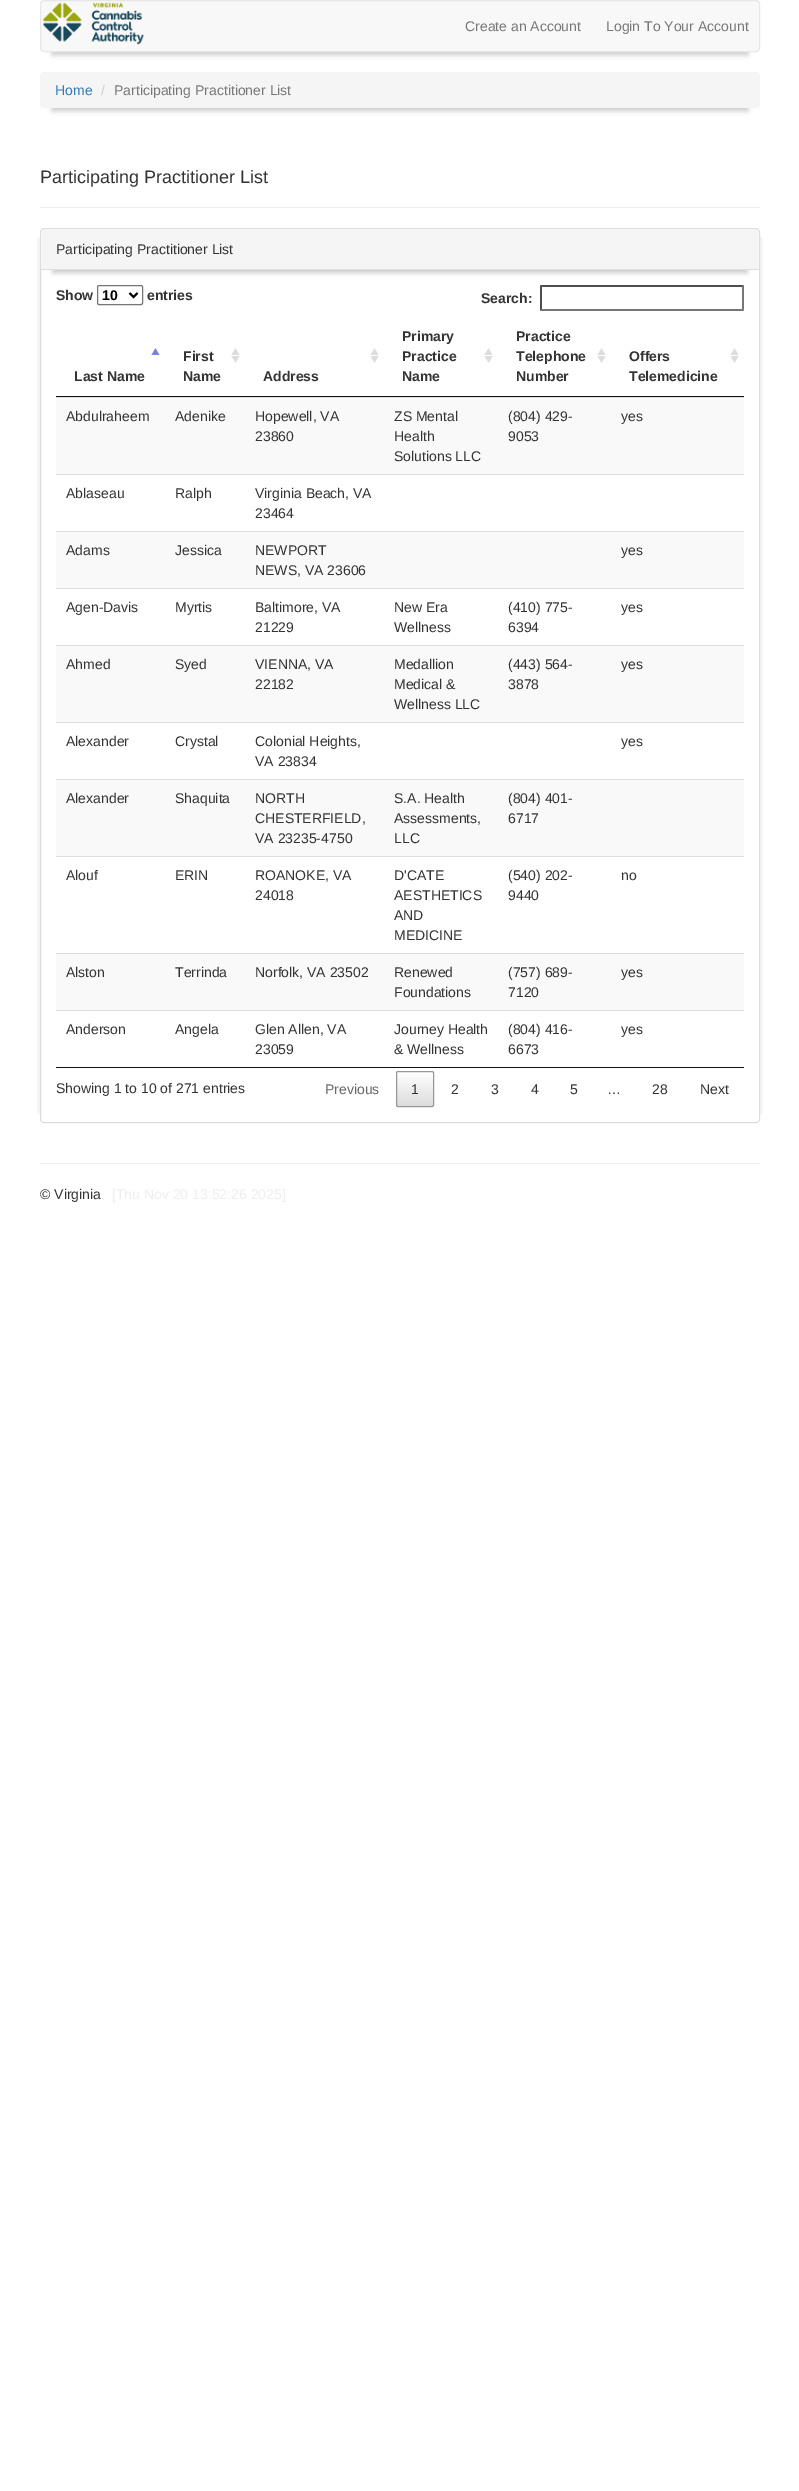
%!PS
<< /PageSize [799 2491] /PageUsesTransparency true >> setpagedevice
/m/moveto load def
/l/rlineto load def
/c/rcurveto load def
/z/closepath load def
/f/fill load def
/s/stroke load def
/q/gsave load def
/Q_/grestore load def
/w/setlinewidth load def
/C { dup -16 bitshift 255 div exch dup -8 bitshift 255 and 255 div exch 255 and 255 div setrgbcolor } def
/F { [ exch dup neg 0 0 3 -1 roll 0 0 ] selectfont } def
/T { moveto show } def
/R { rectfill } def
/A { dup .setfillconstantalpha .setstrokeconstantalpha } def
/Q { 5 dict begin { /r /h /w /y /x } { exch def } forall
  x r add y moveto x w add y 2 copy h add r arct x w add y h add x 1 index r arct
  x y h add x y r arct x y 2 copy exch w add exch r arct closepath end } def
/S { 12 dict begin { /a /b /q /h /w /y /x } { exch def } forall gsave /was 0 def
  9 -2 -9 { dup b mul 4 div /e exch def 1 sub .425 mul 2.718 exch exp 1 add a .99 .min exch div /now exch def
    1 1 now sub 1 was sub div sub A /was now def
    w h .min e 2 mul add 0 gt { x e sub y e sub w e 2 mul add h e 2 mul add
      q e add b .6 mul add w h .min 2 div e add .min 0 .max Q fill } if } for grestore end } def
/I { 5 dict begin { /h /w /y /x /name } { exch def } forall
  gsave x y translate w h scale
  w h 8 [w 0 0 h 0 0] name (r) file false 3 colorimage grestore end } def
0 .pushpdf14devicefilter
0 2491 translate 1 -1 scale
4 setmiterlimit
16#FFFFFF C
0 0 799 2491 R
16#000000 C
52 27 696 28 0 2.5 .2 S
16#F8F8F8 C
40.5 .5 719 51 3.5 Q q f Q_
16#E7E7E7 C
s
(1.rgb) 42 2 102 43 I
/LiberationSans-Regular 14 F
16#777777 C
(Create an Account) 465 31 T
(Login To Your Account) 606 31 T
16#000000 C
52 99 696 12 0 2.5 .2 S
16#F5F5F5 C
40 72 720 36 4 Q f
16#337AB7 C
(Home) 55 95 T
16#CCCCCC C
(/) 101 95 T
16#777777 C
(Participating Practitioner List) 114 95 T
16#EEEEEE C
40 207 720 1 R
/LiberationSans-Regular 18 F
16#333333 C
(Participating Practitioner List) 40 183 T
q
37 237 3 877 rectclip
16#000000 C
45 238 700 875 0 6 .25 S
Q_
q
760 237 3 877 rectclip
16#000000 C
55 238 700 875 0 6 .25 S
Q_
16#DDDDDD C
40.5 228.5 719 894 3.5 Q s
16#000000 C
53 256 694 17 0 2.5 .2 S
16#F5F5F5 C
44 229 m 712 0 l 1.5 0 3 1.5 3 3 c 0 38 l -718 0 l 0 -38 l 0 -1.5 1.5 -3 3 -3 c z f
16#DDDDDD C
41 269 718 1 R
/LiberationSans-Regular 14 F
16#333333 C
(Participating Practitioner List) 56 254 T
/LiberationSans-Bold 14 F
(Show) 56 300 T
16#767676 C
97.5 285.5 45 19 1.5 Q s
16#000000 C
2 w
129.5 293 m 4 4 l 4 -4 l s
(10) 102 300 T
16#333333 C
(entries) 147 300 T
(Search:) 481 303 T
16#4F4F4F C
540 285 m 204 0 l -2 2 l -200 0 l z f
16#767676 C
744 285 m 0 26 l -2 -2 l 0 -22 l z f
744 311 m -204 0 l 2 -2 l 200 0 l z f
16#4F4F4F C
540 311 m 0 -26 l 2 2 l 0 22 l z f
16#111111 C
56 1067 688 1 R
(2.rgb) 151 348 9 7 I
56 396 688 1 R
16#333333 C
(Last Name) 74 381 T
(3.rgb) 231 348 9 15 I
(First) 183 361 T
(Name) 183 381 T
(3.rgb) 370 348 9 15 I
(Address) 263 381 T
(3.rgb) 484 348 9 15 I
(Primary) 402 341 T
(Practice) 402 361 T
(Name) 402 381 T
(3.rgb) 597 348 9 15 I
(Practice) 516 341 T
(Telephone) 516 361 T
(Number) 516 381 T
(3.rgb) 730 348 9 15 I
(Offers) 629 361 T
(Telemedicine) 629 381 T
16#F9F9F9 C
56 398 688 76 R
16#DDDDDD C
56 397 688 1 R
/LiberationSans-Regular 14 F
16#333333 C
(Abdulraheem) 66 421 T
(Adenike) 175 421 T
(Hopewell, VA) 255 421 T
(23860) 255 441 T
(ZS Mental) 394 421 T
(Health) 394 441 T
(Solutions LLC) 394 461 T
(\(804\) 429-) 508 421 T
(9053) 508 441 T
(yes) 621 421 T
16#DDDDDD C
56 474 688 1 R
16#333333 C
(Ablaseau) 66 498 T
(Ralph) 175 498 T
(Virginia Beach, VA) 255 498 T
(23464) 255 518 T
16#F9F9F9 C
56 532 688 56 R
16#DDDDDD C
56 531 688 1 R
16#333333 C
(Adams) 66 555 T
(Jessica) 175 555 T
(NEWPORT) 255 555 T
(NEWS, VA 23606) 255 575 T
(yes) 621 555 T
16#DDDDDD C
56 588 688 1 R
16#333333 C
(Agen-Davis) 66 612 T
(Myrtis) 175 612 T
(Baltimore, VA) 255 612 T
(21229) 255 632 T
(New Era) 394 612 T
(Wellness) 394 632 T
(\(410\) 775-) 508 612 T
(6394) 508 632 T
(yes) 621 612 T
16#F9F9F9 C
56 646 688 76 R
16#DDDDDD C
56 645 688 1 R
16#333333 C
(Ahmed) 66 669 T
(Syed) 175 669 T
(VIENNA, VA) 255 669 T
(22182) 255 689 T
(Medallion) 394 669 T
(Medical &) 394 689 T
(Wellness LLC) 394 709 T
(\(443\) 564-) 508 669 T
(3878) 508 689 T
(yes) 621 669 T
16#DDDDDD C
56 722 688 1 R
16#333333 C
(Alexander) 66 746 T
(Crystal) 175 746 T
(Colonial Heights,) 255 746 T
(VA 23834) 255 766 T
(yes) 621 746 T
16#F9F9F9 C
56 780 688 76 R
16#DDDDDD C
56 779 688 1 R
16#333333 C
(Alexander) 66 803 T
(Shaquita) 175 803 T
(NORTH) 255 803 T
(CHESTERFIELD,) 255 823 T
(VA 23235-4750) 255 843 T
(S.A. Health) 394 803 T
(Assessments,) 394 823 T
(LLC) 394 843 T
(\(804\) 401-) 508 803 T
(6717) 508 823 T
16#DDDDDD C
56 856 688 1 R
16#333333 C
(Alouf) 66 880 T
(ERIN) 175 880 T
(ROANOKE, VA) 255 880 T
(24018) 255 900 T
(D'CATE) 394 880 T
(AESTHETICS) 394 900 T
(AND) 394 920 T
(MEDICINE) 394 940 T
(\(540\) 202-) 508 880 T
(9440) 508 900 T
(no) 621 880 T
16#F9F9F9 C
56 954 688 56 R
16#DDDDDD C
56 953 688 1 R
16#333333 C
(Alston) 66 977 T
(Terrinda) 175 977 T
(Norfolk, VA 23502) 255 977 T
(Renewed) 394 977 T
(Foundations) 394 997 T
(\(757\) 689-) 508 977 T
(7120) 508 997 T
(yes) 621 977 T
16#DDDDDD C
56 1010 688 1 R
16#333333 C
(Anderson) 66 1034 T
(Angela) 175 1034 T
(Glen Allen, VA) 255 1034 T
(23059) 255 1054 T
(Journey Health) 394 1034 T
(& Wellness) 394 1054 T
(\(804\) 416-) 508 1034 T
(6673) 508 1054 T
(yes) 621 1034 T
(Showing 1 to 10 of 271 entries) 56 1093 T
16#666666 C
(Previous) 325 1094 T
q
396 1071 38 36 2 Q clip newpath
q 396 1072 m 38 0 l 0 34 l -38 0 l z clip newpath
<< /ShadingType 2 /ColorSpace /DeviceRGB /Coords [415 1072 415 1106] /Extend [true true] /Function << /FunctionType 2 /Domain [0 1] /C0 [1 1 1] /C1 [.863 .863 .863] /N 1 >> >> shfill Q_
Q_
16#979797 C
1 w
396.5 1071.5 37 35 1.5 Q s
16#333333 C
(1) 411 1094 T
(2) 451 1094 T
(3) 491 1094 T
(4) 531 1094 T
(5) 570 1094 T
(…) 607 1094 T
(28) 652 1094 T
(Next) 700 1094 T
16#EEEEEE C
40 1163 720 1 R
16#333333 C
(© Virginia) 40 1199 T
16#EEEEEE C
([Thu Nov 20 13:52:26 2025]) 112 1199 T
.poppdf14devicefilter showpage
